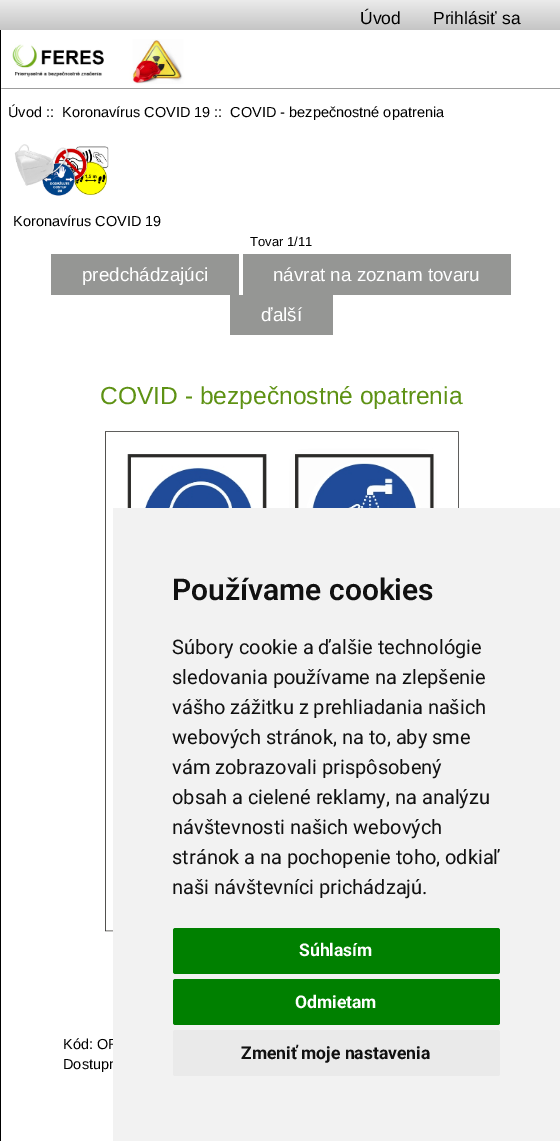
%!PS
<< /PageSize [560 1141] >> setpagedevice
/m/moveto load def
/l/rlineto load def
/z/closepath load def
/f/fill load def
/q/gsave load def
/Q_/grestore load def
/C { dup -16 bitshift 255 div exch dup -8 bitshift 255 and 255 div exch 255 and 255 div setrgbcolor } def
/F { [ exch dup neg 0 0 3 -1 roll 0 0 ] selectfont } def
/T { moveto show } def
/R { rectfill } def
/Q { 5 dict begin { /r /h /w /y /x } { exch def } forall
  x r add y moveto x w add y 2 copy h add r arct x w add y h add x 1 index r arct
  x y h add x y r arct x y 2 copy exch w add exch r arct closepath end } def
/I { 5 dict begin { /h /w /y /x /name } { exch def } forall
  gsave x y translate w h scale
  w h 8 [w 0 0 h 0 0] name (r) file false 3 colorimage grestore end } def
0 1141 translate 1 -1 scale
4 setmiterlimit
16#FFFFFF C
0 0 560 1141 R
q 0 0 m 560 0 l 0 30 l -560 0 l z clip newpath
<< /ShadingType 2 /ColorSpace /DeviceRGB /Coords [280 0 280 30] /Extend [true true] /Function << /FunctionType 2 /Domain [0 1] /C0 [.922 .922 .922] /C1 [.773 .773 .773] /N 1 >> >> shfill Q_
/LiberationSans-Regular 17.5 F
16#000000 C
(Úvod) 360 24 T
(Prihlásiť sa) 433 24 T
0 30 1 1111 R
(1.rgb) 1 39 559 50 I
/LiberationSans-Regular 14.5 F
(Úvod ::) 8 117 T
(Koronavírus COVID 19 ::  COVID - bezpečnostné opatrenia) 62 117 T
(2.rgb) 14 144 95 52 I
(Koronavírus COVID 19) 13 226 T
/LiberationSans-Regular 13 F
(Tovar 1/11) 250 246 T
16#959694 C
51 254 188 41 R
/LiberationSans-Regular 18.8 F
16#FFFFFF C
(predchádzajúci) 82 281 T
16#959694 C
243 254 268 41 R
16#FFFFFF C
(návrat na zoznam tovaru) 273 281 T
16#959694 C
230 295 103 40 R
16#FFFFFF C
(ďalší) 261 321 T
/LiberationSans-Regular 24.6 F
16#5E9214 C
(COVID - bezpečnostné opatrenia) 100 404 T
(3.rgb) 105 431 354 501 I
/LiberationSans-Regular 14.5 F
16#000000 C
(Kód: OR) 63 1049 T
(Dostupn) 63 1069 T
16#F2F2F2 C
113 508 447 633 R
/Roboto-SemiBold 30 F
16#111111 C
(Používame cookies) 172 600 T
/Roboto-Regular 20 F
(Súbory cookie a ďalšie technológie) 172 654 T
(sledovania používame na zlepšenie) 172 684 T
(vášho zážitku z prehliadania našich) 172 714 T
(webových stránok, na to, aby sme) 172 744 T
(vám zobrazovali prispôsobený) 172 774 T
(obsah a cielené reklamy, na analýzu) 172 804 T
(návštevnosti našich webových) 172 834 T
(stránok a na pochopenie toho, odkiaľ) 172 864 T
(naši návštevníci prichádzajú.) 172 894 T
16#008000 C
173 928 327 46 2.5 Q f
/Roboto-Bold 17.5 F
16#FFFFFF C
(Súhlasím) 299 956 T
16#008000 C
173 979 327 46 2.5 Q f
16#FFFFFF C
(Odmietam) 295 1008 T
16#EAEAEA C
173 1030 327 46 2.5 Q f
16#111111 C
(Zmeniť moje nastavenia) 241 1059 T
showpage
